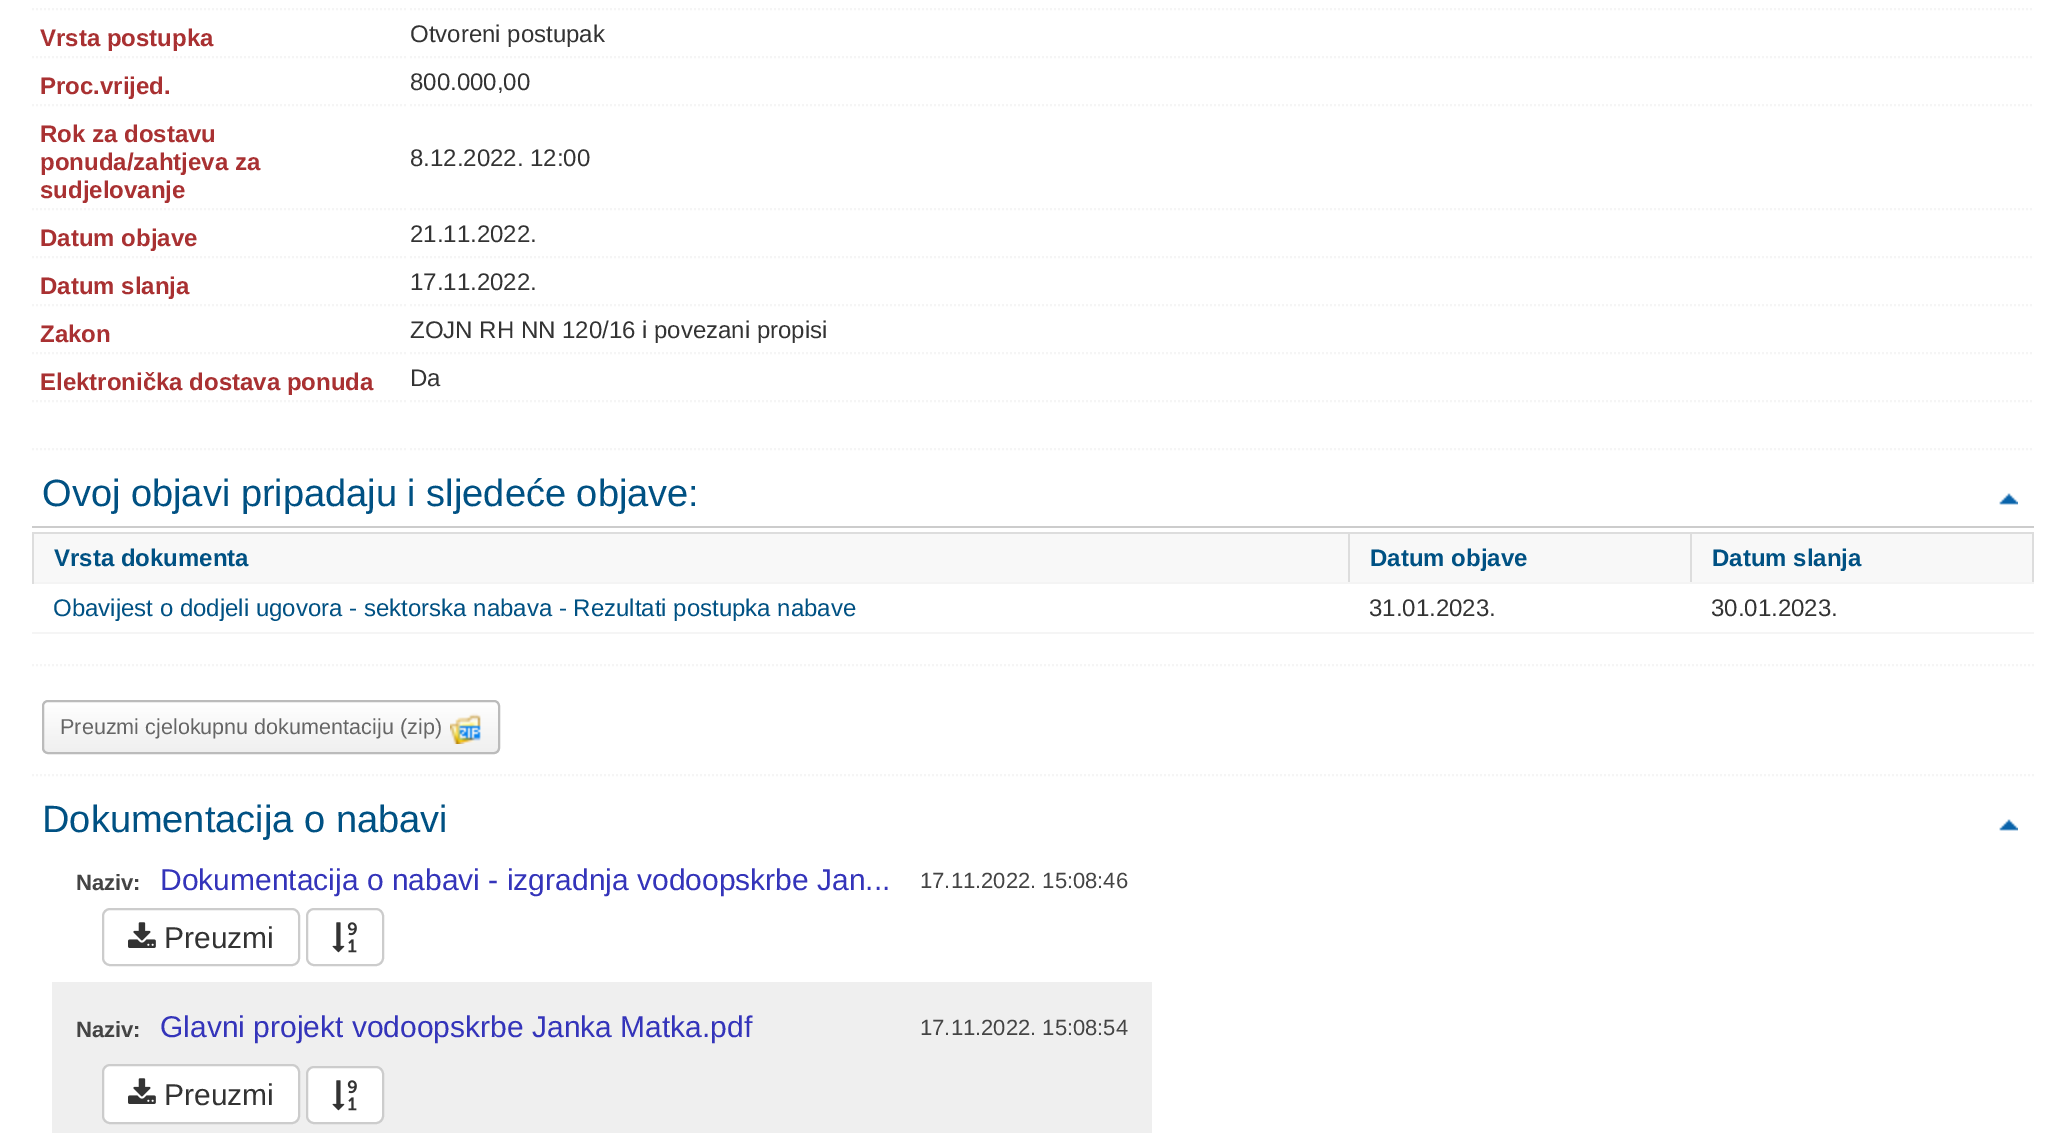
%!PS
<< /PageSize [2065 1133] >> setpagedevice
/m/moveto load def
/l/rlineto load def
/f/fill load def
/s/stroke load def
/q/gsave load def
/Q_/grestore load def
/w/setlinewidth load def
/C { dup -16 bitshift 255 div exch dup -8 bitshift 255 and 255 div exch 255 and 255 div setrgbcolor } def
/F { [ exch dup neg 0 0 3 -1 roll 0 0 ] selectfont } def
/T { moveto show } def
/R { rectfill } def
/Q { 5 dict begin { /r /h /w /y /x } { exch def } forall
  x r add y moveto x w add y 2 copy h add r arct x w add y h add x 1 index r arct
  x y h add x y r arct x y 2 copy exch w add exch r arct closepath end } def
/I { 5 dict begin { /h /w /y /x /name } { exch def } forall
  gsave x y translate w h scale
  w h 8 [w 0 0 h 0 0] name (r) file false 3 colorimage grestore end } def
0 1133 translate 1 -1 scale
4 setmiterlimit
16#FFFFFF C
0 0 2065 1133 R
16#F5F5F5 C
2 w
[2 2] 0 setdash
32 9 m 376 0 l s
410 9 m 1624 0 l s
32 57 m 376 0 l s
/LiberationSans-Bold 24 F
16#A93132 C
(Vrsta postupka) 40 46 T
16#F5F5F5 C
410 57 m 1624 0 l s
/LiberationSans-Regular 24 F
16#333333 C
(Otvoreni postupak) 410 42 T
16#F5F5F5 C
32 105 m 376 0 l s
/LiberationSans-Bold 24 F
16#A93132 C
(Proc.vrijed.) 40 94 T
16#F5F5F5 C
410 105 m 1624 0 l s
/LiberationSans-Regular 24 F
16#333333 C
(800.000,00) 410 90 T
16#F5F5F5 C
32 209 m 376 0 l s
/LiberationSans-Bold 24 F
16#A93132 C
(Rok za dostavu) 40 142 T
(ponuda/zahtjeva za) 40 170 T
(sudjelovanje) 40 198 T
16#F5F5F5 C
410 209 m 1624 0 l s
/LiberationSans-Regular 24 F
16#333333 C
(8.12.2022. 12:00) 410 166 T
16#F5F5F5 C
32 257 m 376 0 l s
/LiberationSans-Bold 24 F
16#A93132 C
(Datum objave) 40 246 T
16#F5F5F5 C
410 257 m 1624 0 l s
/LiberationSans-Regular 24 F
16#333333 C
(21.11.2022.) 410 242 T
16#F5F5F5 C
32 305 m 376 0 l s
/LiberationSans-Bold 24 F
16#A93132 C
(Datum slanja) 40 294 T
16#F5F5F5 C
410 305 m 1624 0 l s
/LiberationSans-Regular 24 F
16#333333 C
(17.11.2022.) 410 290 T
16#F5F5F5 C
32 353 m 376 0 l s
/LiberationSans-Bold 24 F
16#A93132 C
(Zakon) 40 342 T
16#F5F5F5 C
410 353 m 1624 0 l s
/LiberationSans-Regular 24 F
16#333333 C
(ZOJN RH NN 120/16 i povezani propisi) 410 338 T
16#F5F5F5 C
32 401 m 376 0 l s
/LiberationSans-Bold 24 F
16#A93132 C
(Elektronička dostava ponuda) 40 390 T
16#F5F5F5 C
410 401 m 1624 0 l s
/LiberationSans-Regular 24 F
16#333333 C
(Da) 410 386 T
16#F5F5F5 C
32 449 m 376 0 l s
410 449 m 1624 0 l s
32 665 m 2002 0 l s
16#CCCCCC C
32 526 2002 2 R
/LiberationSans-Regular 38 F
16#005183 C
(Ovoj objavi pripadaju i sljedeće objave:) 42 506 T
(1.rgb) 1999 493 19 12 I
16#F8F8F8 C
34 534 1998 48 R
16#DDDDDD C
1690 532 344 2 R
2032 532 2 52 R
16#F4F4F4 C
1690 582 344 2 R
16#DDDDDD C
1690 532 2 52 R
1348 532 344 2 R
16#F4F4F4 C
1348 582 344 2 R
16#DDDDDD C
1348 532 2 52 R
32 532 1318 2 R
16#F4F4F4 C
32 582 1318 2 R
16#DDDDDD C
32 532 2 52 R
/LiberationSans-Bold 24 F
16#005183 C
(Vrsta dokumenta) 54 566 T
(Datum objave) 1370 566 T
(Datum slanja) 1712 566 T
/LiberationSans-Regular 24 F
(Obavijest o dodjeli ugovora - sektorska nabava - Rezultati postupka nabave) 53 616 T
16#333333 C
(31.01.2023.) 1369 616 T
16#F5F5F5 C
32 632 2002 2 R
16#333333 C
(30.01.2023.) 1711 616 T
16#F5F5F5 C
32 775 m 2002 0 l s
(2.rgb) 42 702 458 52 I
16#BBBBBB C
[] 0 setdash
43 701 456 52 5 Q s
(3.rgb) 450 713 31 31 I
/LiberationSans-Regular 21.6 F
16#666666 C
(Preuzmi cjelokupnu dokumentaciju \(zip\)) 60 734 T
/LiberationSans-Regular 38 F
16#005183 C
(Dokumentacija o nabavi) 42 832 T
(1.rgb) 1999 819 19 12 I
/LiberationSans-Bold 22 F
16#444444 C
(Naziv:) 76 890 T
/LiberationSans-Regular 30 F
16#3434BA C
(Dokumentacija o nabavi - izgradnja vodoopskrbe Jan...) 160 890 T
/LiberationSans-Regular 22 F
16#444444 C
(17.11.2022. 15:08:46) 920 888 T
16#CCCCCC C
103 909 196 56 7 Q s
(4.rgb) 128 922 28 26 I
/LiberationSans-Regular 30 F
16#333333 C
(Preuzmi) 164 948 T
16#CCCCCC C
307 909 76 56 7 Q s
(5.rgb) 332 922 25 31 I
16#EFEFEF C
52 982 1100 151 R
/LiberationSans-Bold 22 F
16#444444 C
(Naziv:) 76 1037 T
/LiberationSans-Regular 30 F
16#3434BA C
(Glavni projekt vodoopskrbe Janka Matka.pdf) 160 1037 T
/LiberationSans-Regular 22 F
16#444444 C
(17.11.2022. 15:08:54) 920 1035 T
16#FFFFFF C
103 1065 196 58 7 Q q f Q_
16#CCCCCC C
s
(4.rgb) 128 1078 28 26 I
/LiberationSans-Regular 30 F
16#333333 C
(Preuzmi) 164 1105 T
16#FFFFFF C
307 1067 76 56 7 Q q f Q_
16#CCCCCC C
s
(5.rgb) 332 1080 25 31 I
showpage
